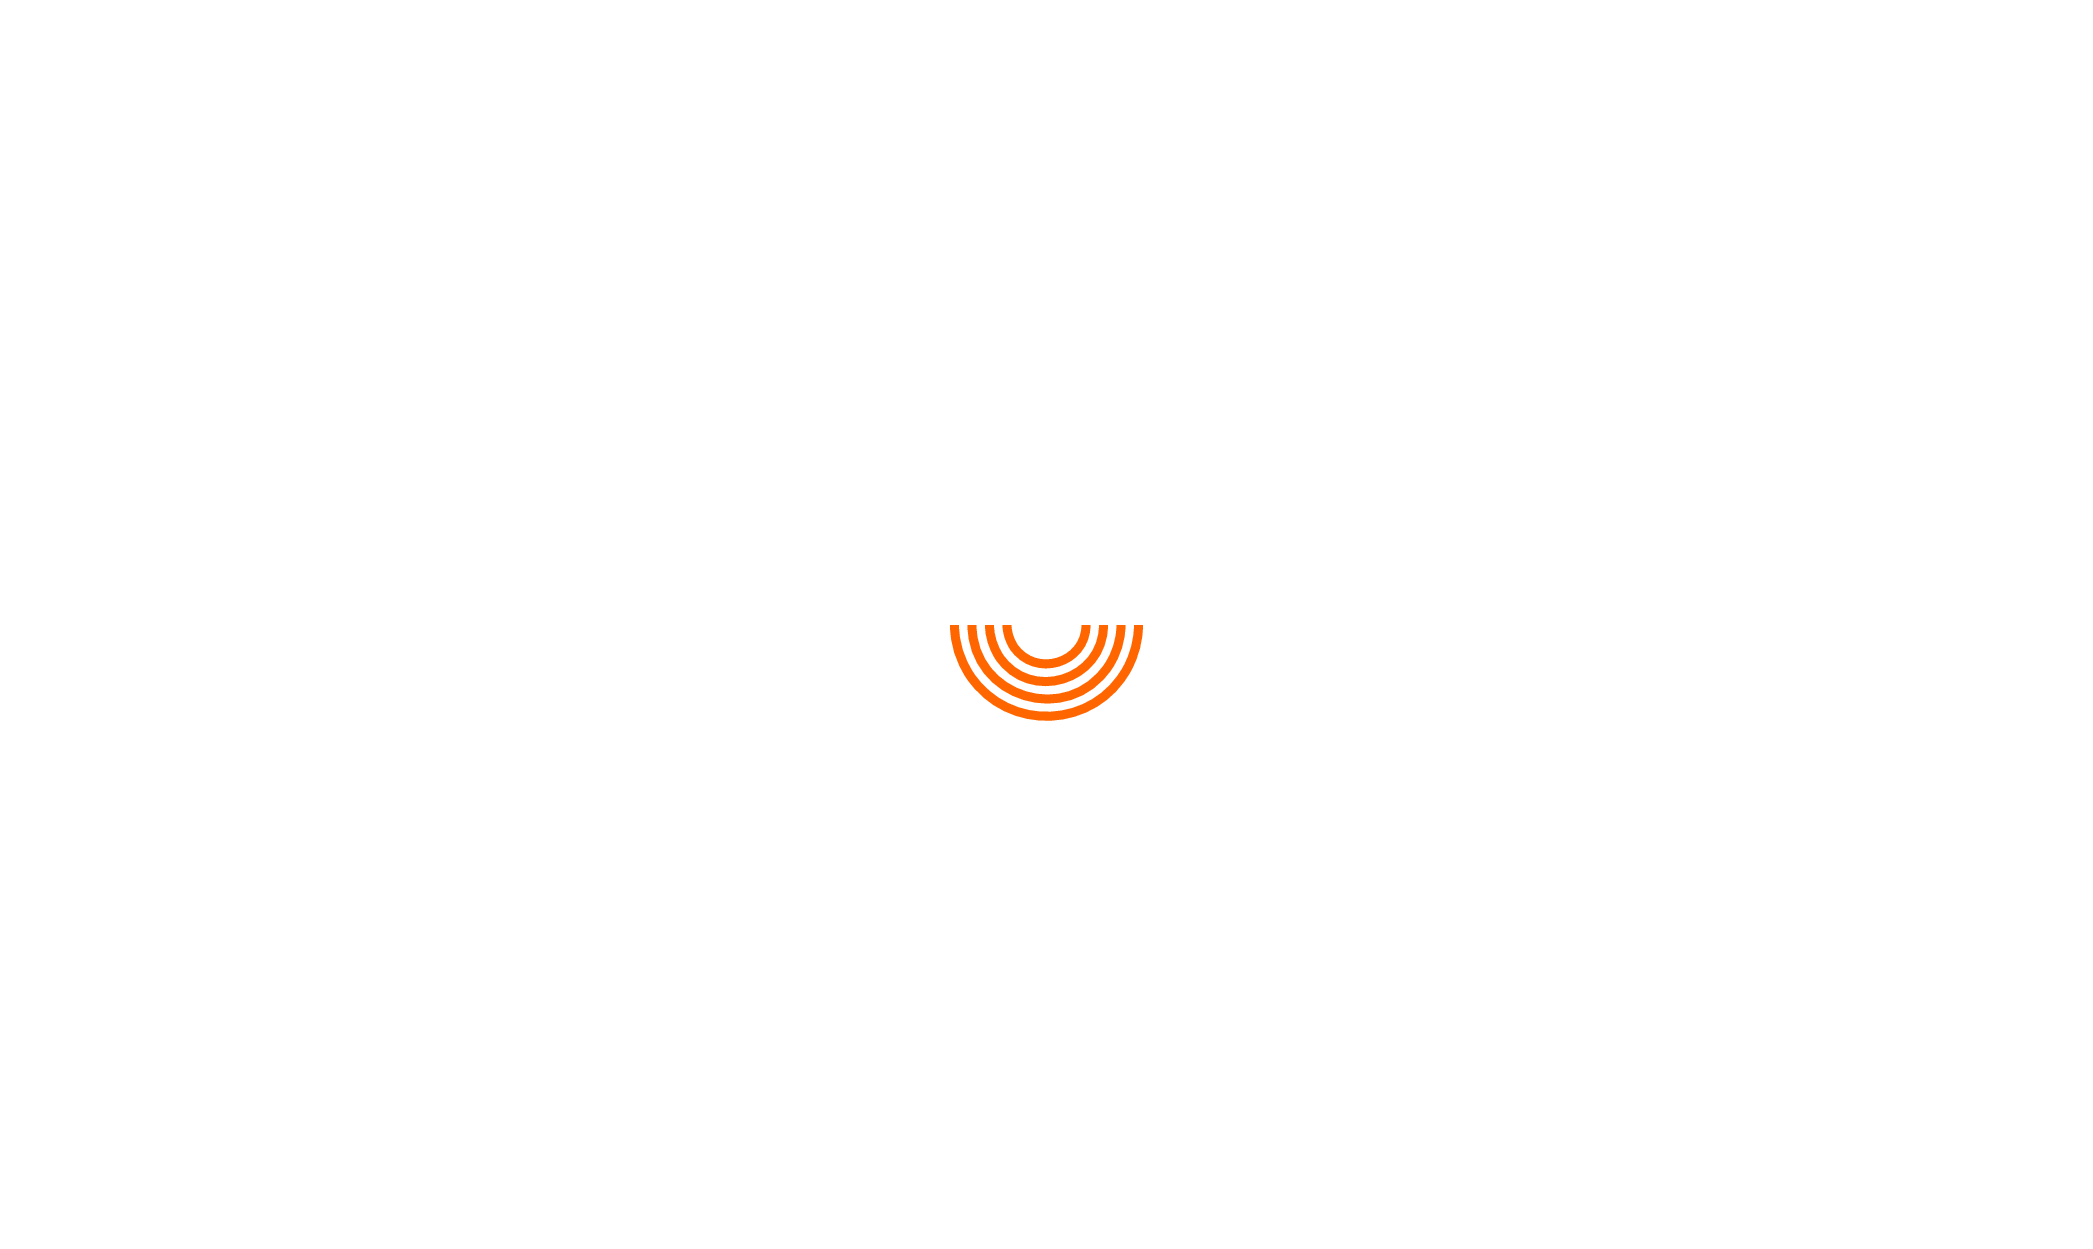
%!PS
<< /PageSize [2093 1249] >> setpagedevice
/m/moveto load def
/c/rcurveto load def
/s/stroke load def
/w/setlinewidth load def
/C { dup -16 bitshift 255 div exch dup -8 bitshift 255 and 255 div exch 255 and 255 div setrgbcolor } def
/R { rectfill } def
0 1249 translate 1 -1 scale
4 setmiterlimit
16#FFFFFF C
0 0 2093 1249 R
16#FF6600 C
8.8 w
1138.5 625 m 0 15 -4 30 -11 43 c -32.5 61 -119 65 -157.5 7.5 c -10 -15 -15.5 -32.5 -15.5 -50.5 c s
1121 625 m 0 14.5 -4.5 29 -12.5 41 c -40.5 61 -136.5 32 -136.5 -41 c s
1103.5 625 m 0 55.5 -73.5 78 -104.5 31.5 c -6 -9.5 -9.5 -20.5 -9.5 -31.5 c s
1086 625 m 0 38.5 -51 53.5 -72.5 21.5 c -4 -6.5 -6.5 -14 -6.5 -21.5 c s
showpage
